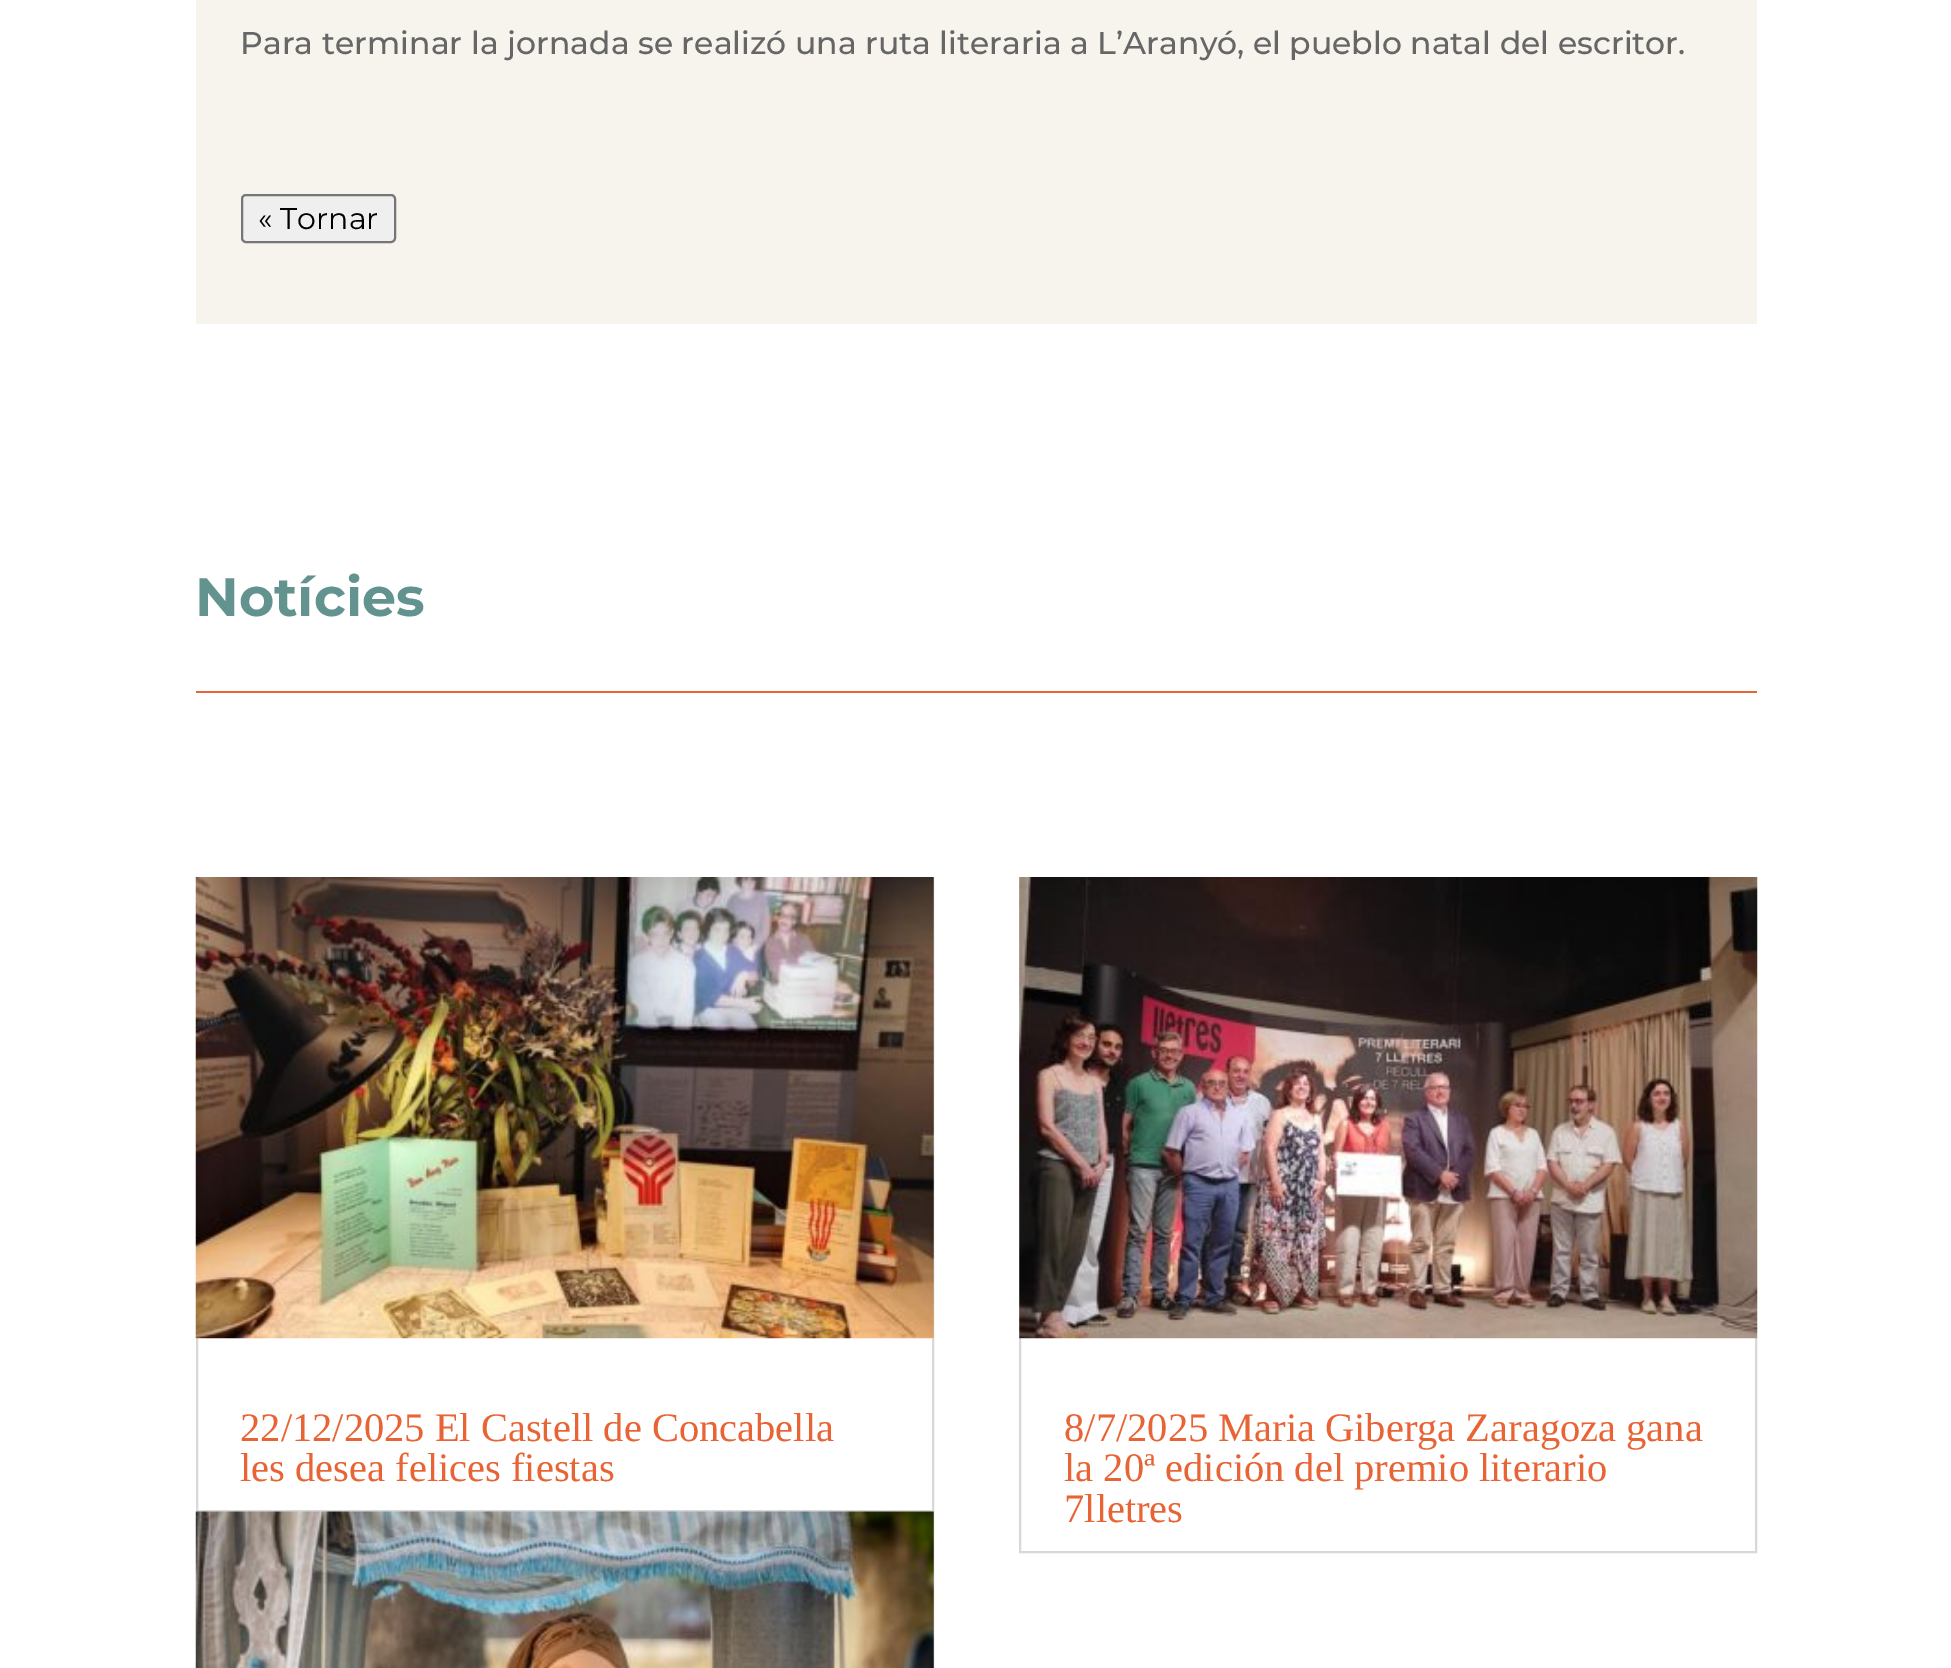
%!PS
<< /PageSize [1951 1668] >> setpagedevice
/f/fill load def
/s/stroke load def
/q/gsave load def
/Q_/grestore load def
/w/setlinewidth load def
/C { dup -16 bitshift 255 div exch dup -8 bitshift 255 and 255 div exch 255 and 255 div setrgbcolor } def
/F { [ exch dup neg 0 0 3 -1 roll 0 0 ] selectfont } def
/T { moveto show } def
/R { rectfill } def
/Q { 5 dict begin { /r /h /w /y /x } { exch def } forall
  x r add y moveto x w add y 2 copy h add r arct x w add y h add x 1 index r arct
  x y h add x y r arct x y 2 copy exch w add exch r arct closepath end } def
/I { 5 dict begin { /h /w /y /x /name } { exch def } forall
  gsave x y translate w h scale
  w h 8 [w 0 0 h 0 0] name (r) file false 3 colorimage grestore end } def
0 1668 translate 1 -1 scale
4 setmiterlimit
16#FFFFFF C
0 0 1951 1668 R
16#F6F4ED C
196 0 1561 324 R
/Montserrat-Medium 31.5 F
16#666666 C
(Para terminar la jornada se realizó una ruta literaria a L’Aranyó, el pueblo natal del escritor.) 240 54 T
16#EFEFEF C
242 195 153 47 4 Q q f Q_
16#767676 C
2 w
s
/Montserrat-Regular 30 F
16#000000 C
(« Tornar) 258 229 T
/Montserrat-Bold 54 F
16#62938F C
(Notícies) 195 616 T
16#E86434 C
196 691 1561 2 R
16#D8D8D8 C
197 879 736 632 rectstroke
(1.rgb) 195 877 739 462 I
/LiberationSerif-Regular 40.5 F
16#E86434 C
(22/12/2025 El Castell de Concabella) 240 1441 T
(les desea felices fiestas) 240 1481 T
16#D8D8D8 C
197 1513 736 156 rectstroke
(2.rgb) 195 1511 739 157 I
1020 879 736 673 rectstroke
(3.rgb) 1019 877 739 462 I
16#E86434 C
(8/7/2025 Maria Giberga Zaragoza gana) 1064 1441 T
(la 20ª edición del premio literario) 1064 1481 T
(7lletres) 1064 1522 T
showpage
